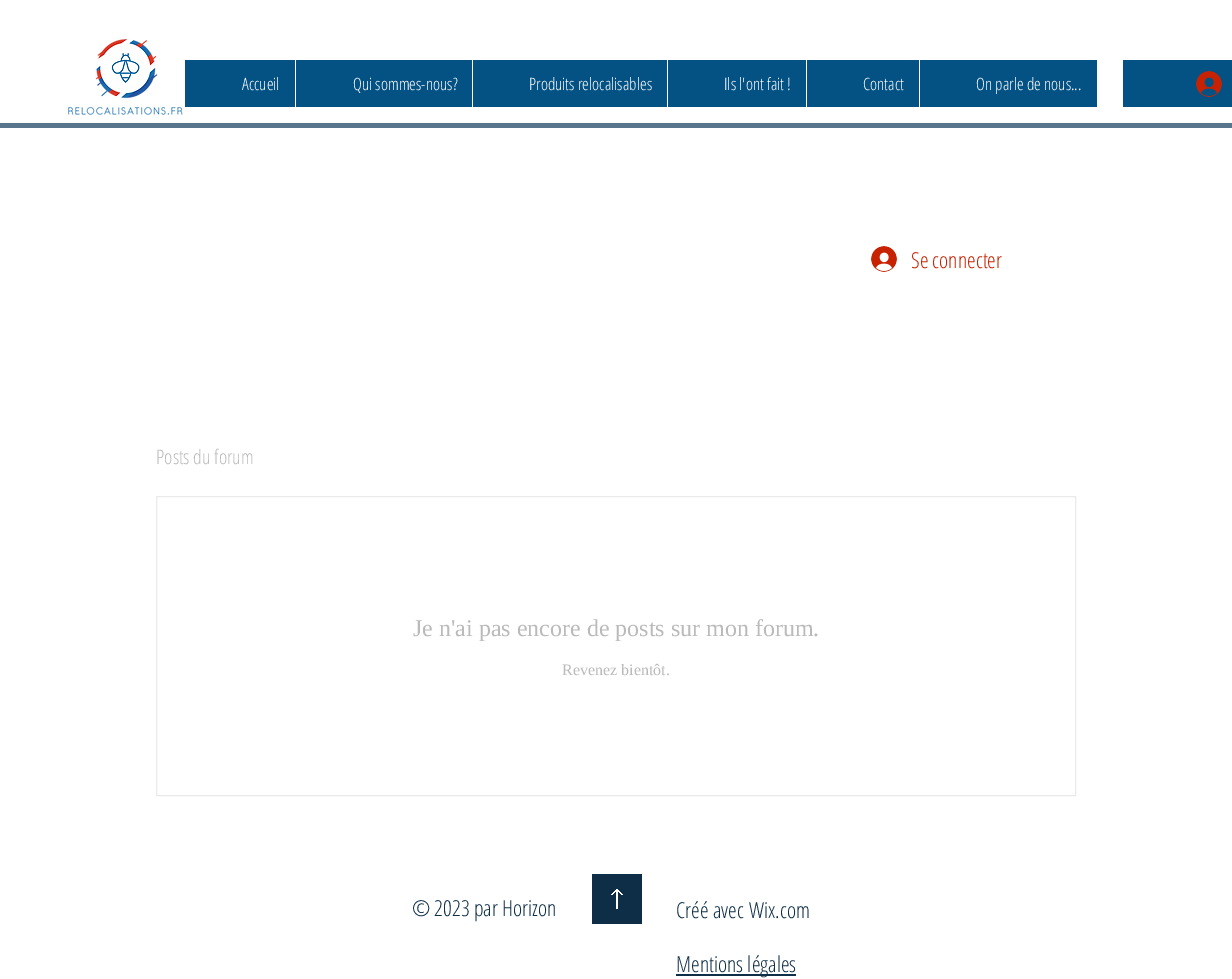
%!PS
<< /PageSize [1232 979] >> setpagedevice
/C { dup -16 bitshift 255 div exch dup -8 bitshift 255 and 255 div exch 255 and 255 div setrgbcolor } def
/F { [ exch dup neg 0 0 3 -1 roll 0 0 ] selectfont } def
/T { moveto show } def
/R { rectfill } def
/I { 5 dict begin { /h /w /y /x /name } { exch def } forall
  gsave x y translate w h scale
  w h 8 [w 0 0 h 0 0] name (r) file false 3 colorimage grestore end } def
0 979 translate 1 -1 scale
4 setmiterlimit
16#FFFFFF C
0 0 1232 979 R
(1.rgb) 68 39 115 76 I
16#045184 C
185 60 912 47 R
/OpenSansCondensed-Light 17 F
16#FFFFFE C
(Accueil) 242 90 T
16#FFFFFF C
295 60 1 47 R
16#FFFFFE C
(Qui sommes-nous?) 353 90 T
16#FFFFFF C
472 60 1 47 R
16#FFFFFE C
(Produits relocalisables) 529 90 T
16#FFFFFF C
667 60 1 47 R
16#FFFFFE C
(Ils l'ont fait !) 724 90 T
16#FFFFFF C
806 60 1 47 R
16#FFFFFE C
(Contact) 863 90 T
16#FFFFFF C
919 60 1 47 R
16#FFFFFE C
(On parle de nous...) 976 90 T
16#045184 C
1123 60 109 47 R
(2.rgb) 1196 71 26 26 I
16#58758C C
0 123 1232 5 R
(3.rgb) 871 246 26 26 I
/OpenSansCondensed-Light 22 F
16#C72302 C
(Se connecter) 911 268 T
/OpenSansCondensed-Light 20 F
16#BABABA C
(Posts du forum) 156 464 T
16#EAEAEA C
156.5 496.5 919 299 rectstroke
/LiberationSerif-Regular 24 F
16#BABABA C
(Je n'ai pas encore de posts sur mon forum.) 413 636 T
/LiberationSerif-Regular 16 F
(Revenez bientôt.) 562 675 T
/OpenSansCondensed-Light 22 F
16#0E2F47 C
(© 2023 par Horizon) 412 916 T
(4.rgb) 592 874 50 50 I
(Créé avec) 676 918 T
(Wix.com) 749 918 T
676 974 120 2 R
(Mentions légales) 676 972 T
showpage
